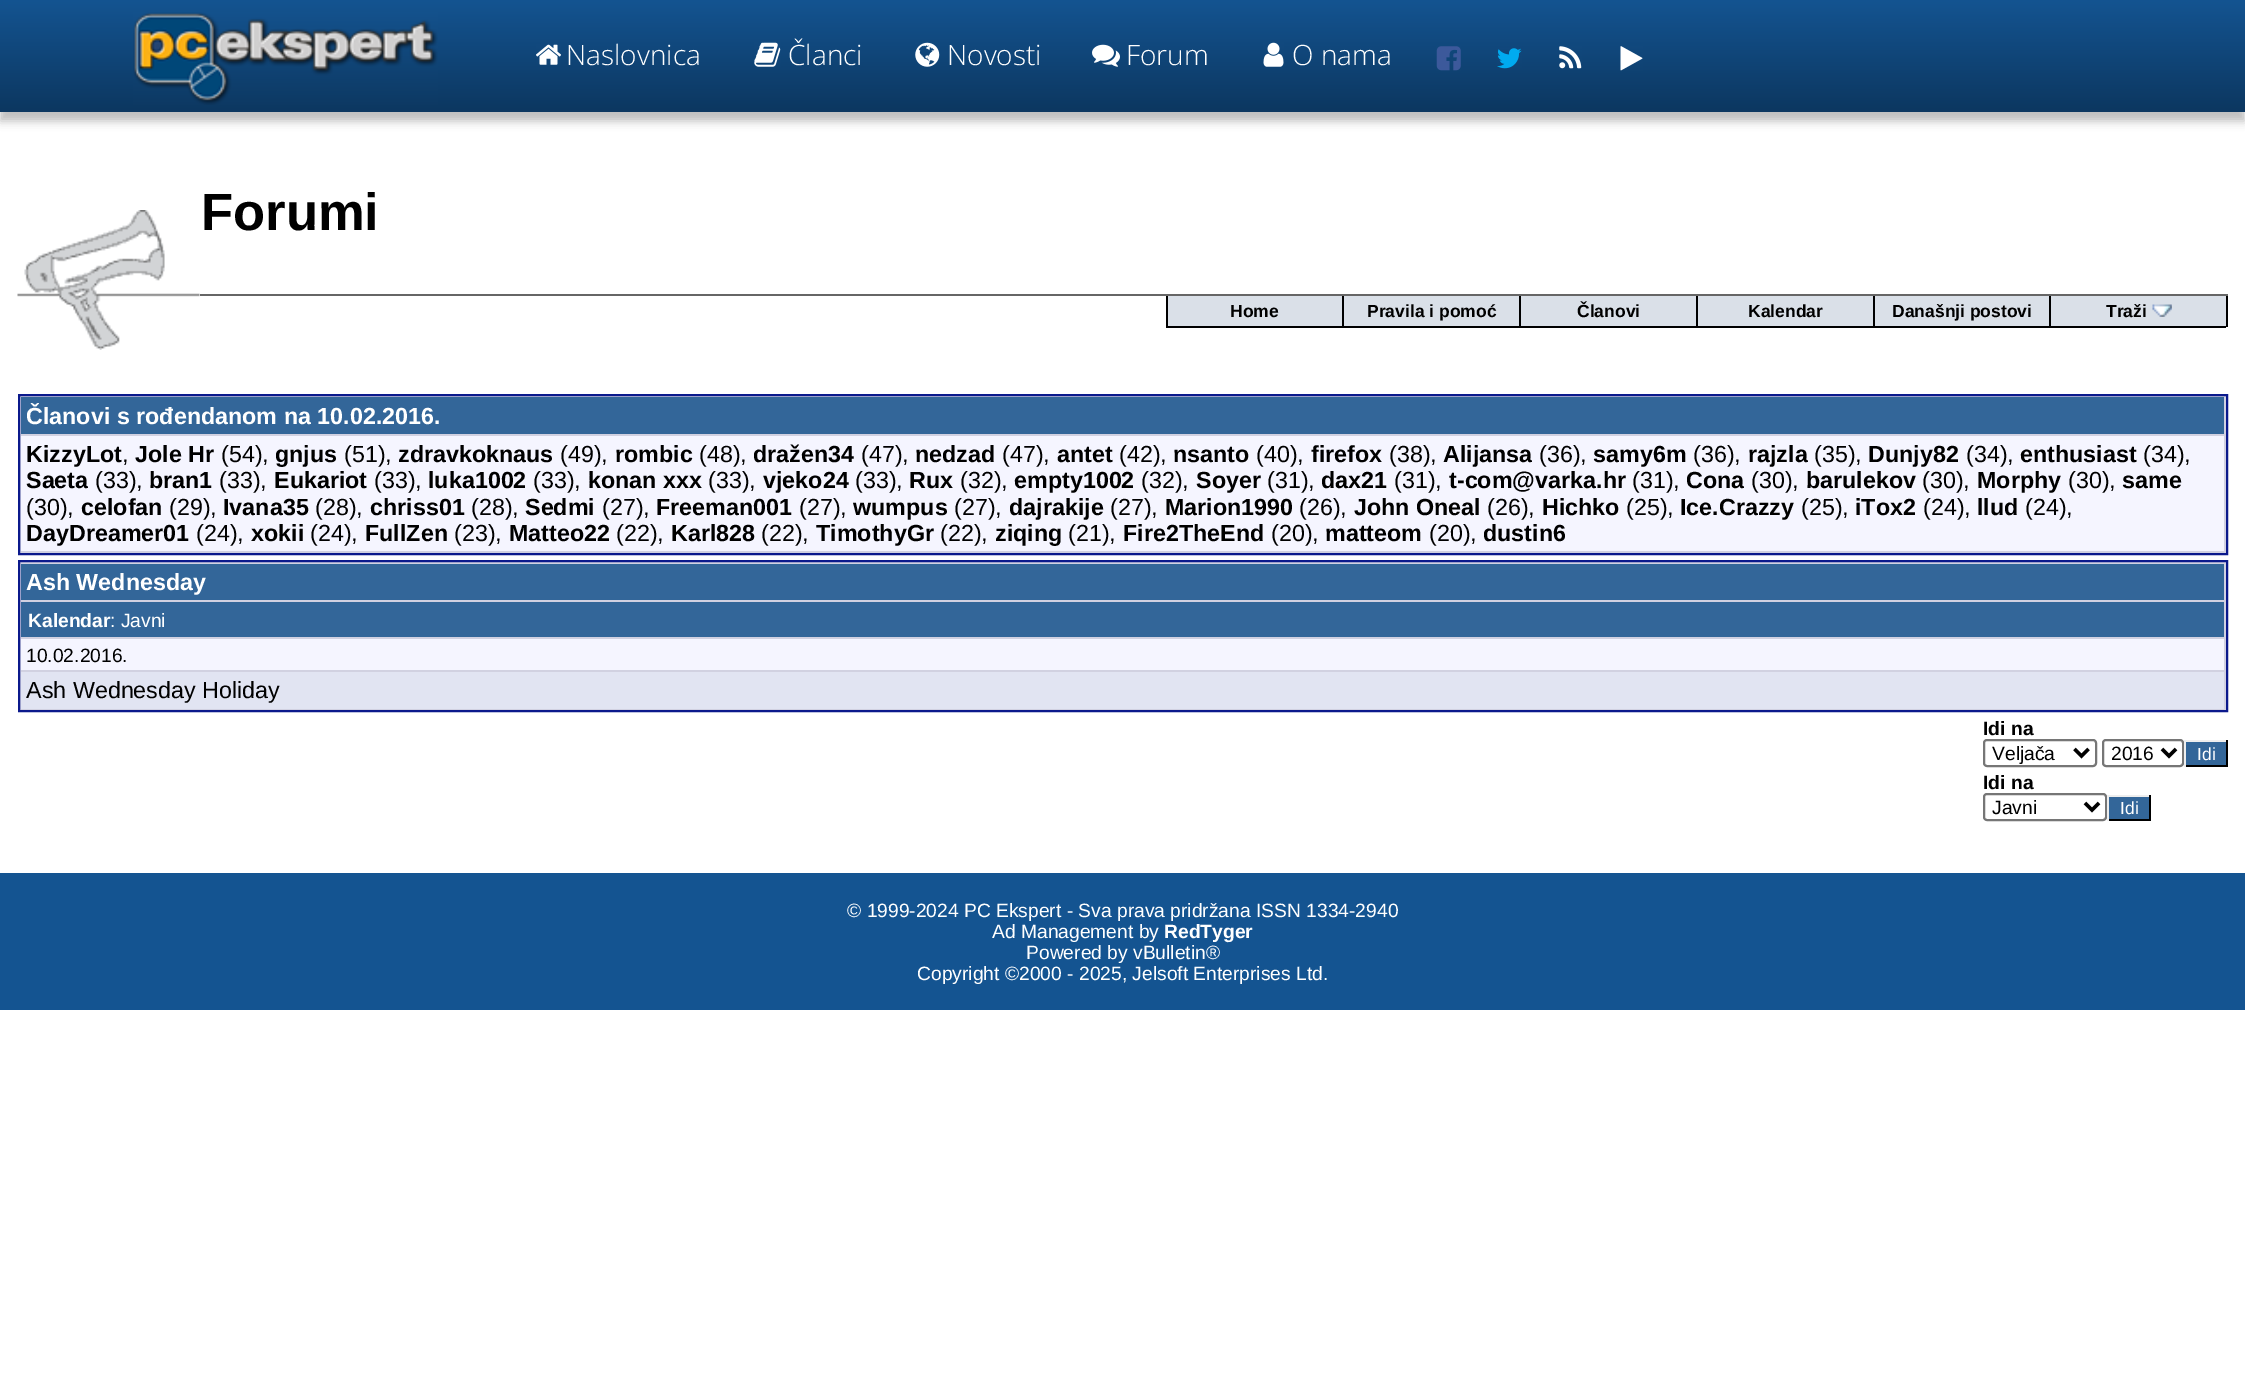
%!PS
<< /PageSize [2245 1380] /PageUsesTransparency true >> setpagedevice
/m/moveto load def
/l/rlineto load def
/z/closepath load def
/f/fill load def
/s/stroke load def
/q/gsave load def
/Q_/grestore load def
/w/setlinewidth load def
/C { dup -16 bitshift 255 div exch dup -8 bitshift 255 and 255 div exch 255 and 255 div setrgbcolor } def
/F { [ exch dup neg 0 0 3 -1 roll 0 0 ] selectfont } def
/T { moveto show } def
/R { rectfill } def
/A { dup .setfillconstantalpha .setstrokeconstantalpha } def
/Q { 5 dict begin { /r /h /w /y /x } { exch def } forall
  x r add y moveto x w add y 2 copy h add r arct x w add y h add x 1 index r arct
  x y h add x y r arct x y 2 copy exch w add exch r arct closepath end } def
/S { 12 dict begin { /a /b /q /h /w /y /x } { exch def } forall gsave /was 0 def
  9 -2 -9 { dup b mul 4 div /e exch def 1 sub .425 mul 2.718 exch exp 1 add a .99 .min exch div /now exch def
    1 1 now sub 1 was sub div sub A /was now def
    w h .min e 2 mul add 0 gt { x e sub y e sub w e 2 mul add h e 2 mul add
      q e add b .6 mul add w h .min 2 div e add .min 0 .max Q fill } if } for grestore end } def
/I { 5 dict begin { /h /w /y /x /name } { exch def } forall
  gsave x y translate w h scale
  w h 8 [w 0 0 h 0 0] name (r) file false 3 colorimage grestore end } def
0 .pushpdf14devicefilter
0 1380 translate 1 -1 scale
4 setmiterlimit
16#FFFFFF C
0 0 2245 1380 R
16#000000 C
0 9 2245 112 0 4.5 .25 S
q 0 0 m 2245 0 l 0 112 l -2245 0 l z clip newpath
<< /ShadingType 2 /ColorSpace /DeviceRGB /Coords [1123 0 1123 112] /Extend [true true] /Function << /FunctionType 2 /Domain [0 1] /C0 [.078 .329 .569] /C1 [.047 .216 .376] /N 1 >> >> shfill Q_
(1.rgb) 133 12 305 93 I
(2.rgb) 536 44 25 21 I
/OpenSans-Light 28 F
16#FFFFFF C
(Naslovnica) 566 65 T
(3.rgb) 754 42 27 25 I
(Članci) 788 65 T
(4.rgb) 915 42 25 25 I
(Novosti) 947 65 T
(5.rgb) 1092 44 28 23 I
(Forum) 1126 65 T
(6.rgb) 1263 42 21 25 I
(O nama) 1292 65 T
(7.rgb) 1436 46 25 25 I
(8.rgb) 1497 48 25 21 I
(9.rgb) 1559 46 23 23 I
(10.rgb) 1620 46 23 25 I
(11.rgb) 17 210 183 140 I
/LiberationSans-Bold 52.5 F
16#000000 C
(Forumi) 201 230 T
16#666666 C
200 294 2028 2 R
16#000000 C
2226 296 2 31 R
16#DAE0E8 C
1168 296 174 30 R
16#000000 C
1166 326 1060 2 R
1166 296 2 31 R
/LiberationSans-Bold 17.5 F
(Home) 1230 317 T
16#DAE0E8 C
1344 296 175 30 R
16#000000 C
1342 296 2 31 R
(Pravila i pomoć) 1367 317 T
16#DAE0E8 C
1521 296 175 30 R
16#000000 C
1519 296 2 31 R
(Članovi) 1577 317 T
16#DAE0E8 C
1698 296 175 30 R
16#000000 C
1696 296 2 31 R
(Kalendar) 1748 317 T
16#DAE0E8 C
1875 296 174 30 R
16#000000 C
1873 296 2 31 R
(Današnji postovi) 1892 317 T
16#DAE0E8 C
2051 296 175 30 R
16#000000 C
2049 296 2 31 R
(Traži) 2106 317 T
(12.rgb) 2152 304 20 13 I
16#D1D1E1 C
19 395 m 2208 0 l 0 159 l -2208 0 l z q f Q_
16#0B198C C
2 w
s
16#336699 C
21 397 2203 37 R
/LiberationSans-Bold 23.3 F
16#FFFFFF C
(Članovi s rođendanom na 10.02.2016.) 26 424 T
16#F5F5FF C
21 436 2203 115 R
16#000000 C
(KizzyLot) 26 462 T
/LiberationSans-Regular 23.3 F
(,) 122 462 T
/LiberationSans-Bold 23.3 F
(Jole Hr) 135 462 T
/LiberationSans-Regular 23.3 F
(\(54\),) 221 462 T
/LiberationSans-Bold 23.3 F
(gnjus) 275 462 T
/LiberationSans-Regular 23.3 F
(\(51\),) 344 462 T
/LiberationSans-Bold 23.3 F
(zdravkoknaus) 398 462 T
/LiberationSans-Regular 23.3 F
(\(49\),) 560 462 T
/LiberationSans-Bold 23.3 F
(rombic) 615 462 T
/LiberationSans-Regular 23.3 F
(\(48\),) 699 462 T
/LiberationSans-Bold 23.3 F
(dražen34) 753 462 T
/LiberationSans-Regular 23.3 F
(\(47\),) 861 462 T
/LiberationSans-Bold 23.3 F
(nedzad) 915 462 T
/LiberationSans-Regular 23.3 F
(\(47\),) 1002 462 T
/LiberationSans-Bold 23.3 F
(antet) 1057 462 T
/LiberationSans-Regular 23.3 F
(\(42\),) 1119 462 T
/LiberationSans-Bold 23.3 F
(nsanto) 1173 462 T
/LiberationSans-Regular 23.3 F
(\(40\),) 1256 462 T
/LiberationSans-Bold 23.3 F
(firefox) 1311 462 T
/LiberationSans-Regular 23.3 F
(\(38\),) 1389 462 T
/LiberationSans-Bold 23.3 F
(Alijansa) 1443 462 T
/LiberationSans-Regular 23.3 F
(\(36\),) 1539 462 T
/LiberationSans-Bold 23.3 F
(samy6m) 1593 462 T
/LiberationSans-Regular 23.3 F
(\(36\),) 1693 462 T
/LiberationSans-Bold 23.3 F
(rajzla) 1748 462 T
/LiberationSans-Regular 23.3 F
(\(35\),) 1814 462 T
/LiberationSans-Bold 23.3 F
(Dunjy82) 1868 462 T
/LiberationSans-Regular 23.3 F
(\(34\),) 1966 462 T
/LiberationSans-Bold 23.3 F
(enthusiast) 2020 462 T
/LiberationSans-Regular 23.3 F
(\(34\),) 2143 462 T
/LiberationSans-Bold 23.3 F
(Saeta) 26 488 T
/LiberationSans-Regular 23.3 F
(\(33\),) 95 488 T
/LiberationSans-Bold 23.3 F
(bran1) 149 488 T
/LiberationSans-Regular 23.3 F
(\(33\),) 219 488 T
/LiberationSans-Bold 23.3 F
(Eukariot) 274 488 T
/LiberationSans-Regular 23.3 F
(\(33\),) 374 488 T
/LiberationSans-Bold 23.3 F
(luka1002) 428 488 T
/LiberationSans-Regular 23.3 F
(\(33\),) 533 488 T
/LiberationSans-Bold 23.3 F
(konan xxx) 588 488 T
/LiberationSans-Regular 23.3 F
(\(33\),) 708 488 T
/LiberationSans-Bold 23.3 F
(vjeko24) 763 488 T
/LiberationSans-Regular 23.3 F
(\(33\),) 855 488 T
/LiberationSans-Bold 23.3 F
(Rux) 909 488 T
/LiberationSans-Regular 23.3 F
(\(32\),) 960 488 T
/LiberationSans-Bold 23.3 F
(empty1002) 1014 488 T
/LiberationSans-Regular 23.3 F
(\(32\),) 1141 488 T
/LiberationSans-Bold 23.3 F
(Soyer) 1196 488 T
/LiberationSans-Regular 23.3 F
(\(31\),) 1267 488 T
/LiberationSans-Bold 23.3 F
(dax21) 1321 488 T
/LiberationSans-Regular 23.3 F
(\(31\),) 1394 488 T
/LiberationSans-Bold 23.3 F
(t-com@varka.hr) 1449 488 T
/LiberationSans-Regular 23.3 F
(\(31\),) 1632 488 T
/LiberationSans-Bold 23.3 F
(Cona) 1686 488 T
/LiberationSans-Regular 23.3 F
(\(30\),) 1751 488 T
/LiberationSans-Bold 23.3 F
(barulekov) 1806 488 T
/LiberationSans-Regular 23.3 F
(\(30\),) 1922 488 T
/LiberationSans-Bold 23.3 F
(Morphy) 1977 488 T
/LiberationSans-Regular 23.3 F
(\(30\),) 2068 488 T
/LiberationSans-Bold 23.3 F
(same) 2122 488 T
/LiberationSans-Regular 23.3 F
(\(30\),) 26 515 T
/LiberationSans-Bold 23.3 F
(celofan) 81 515 T
/LiberationSans-Regular 23.3 F
(\(29\),) 169 515 T
/LiberationSans-Bold 23.3 F
(Ivana35) 223 515 T
/LiberationSans-Regular 23.3 F
(\(28\),) 315 515 T
/LiberationSans-Bold 23.3 F
(chriss01) 370 515 T
/LiberationSans-Regular 23.3 F
(\(28\),) 471 515 T
/LiberationSans-Bold 23.3 F
(Sedmi) 525 515 T
/LiberationSans-Regular 23.3 F
(\(27\),) 602 515 T
/LiberationSans-Bold 23.3 F
(Freeman001) 656 515 T
/LiberationSans-Regular 23.3 F
(\(27\),) 799 515 T
/LiberationSans-Bold 23.3 F
(wumpus) 853 515 T
/LiberationSans-Regular 23.3 F
(\(27\),) 954 515 T
/LiberationSans-Bold 23.3 F
(dajrakije) 1009 515 T
/LiberationSans-Regular 23.3 F
(\(27\),) 1110 515 T
/LiberationSans-Bold 23.3 F
(Marion1990) 1165 515 T
/LiberationSans-Regular 23.3 F
(\(26\),) 1299 515 T
/LiberationSans-Bold 23.3 F
(John Oneal) 1354 515 T
/LiberationSans-Regular 23.3 F
(\(26\),) 1487 515 T
/LiberationSans-Bold 23.3 F
(Hichko) 1542 515 T
/LiberationSans-Regular 23.3 F
(\(25\),) 1626 515 T
/LiberationSans-Bold 23.3 F
(Ice.Crazzy) 1680 515 T
/LiberationSans-Regular 23.3 F
(\(25\),) 1801 515 T
/LiberationSans-Bold 23.3 F
(iTox2) 1855 515 T
/LiberationSans-Regular 23.3 F
(\(24\),) 1923 515 T
/LiberationSans-Bold 23.3 F
(llud) 1977 515 T
/LiberationSans-Regular 23.3 F
(\(24\),) 2025 515 T
/LiberationSans-Bold 23.3 F
(DayDreamer01) 26 541 T
/LiberationSans-Regular 23.3 F
(\(24\),) 196 541 T
/LiberationSans-Bold 23.3 F
(xokii) 251 541 T
/LiberationSans-Regular 23.3 F
(\(24\),) 310 541 T
/LiberationSans-Bold 23.3 F
(FullZen) 365 541 T
/LiberationSans-Regular 23.3 F
(\(23\),) 454 541 T
/LiberationSans-Bold 23.3 F
(Matteo22) 509 541 T
/LiberationSans-Regular 23.3 F
(\(22\),) 616 541 T
/LiberationSans-Bold 23.3 F
(Karl828) 671 541 T
/LiberationSans-Regular 23.3 F
(\(22\),) 761 541 T
/LiberationSans-Bold 23.3 F
(TimothyGr) 816 541 T
/LiberationSans-Regular 23.3 F
(\(22\),) 940 541 T
/LiberationSans-Bold 23.3 F
(ziqing) 995 541 T
/LiberationSans-Regular 23.3 F
(\(21\),) 1068 541 T
/LiberationSans-Bold 23.3 F
(Fire2TheEnd) 1123 541 T
/LiberationSans-Regular 23.3 F
(\(20\),) 1271 541 T
/LiberationSans-Bold 23.3 F
(matteom) 1325 541 T
/LiberationSans-Regular 23.3 F
(\(20\),) 1429 541 T
/LiberationSans-Bold 23.3 F
(dustin6) 1483 541 T
16#D1D1E1 C
19 561 m 2208 0 l 0 150 l -2208 0 l z q f Q_
16#0B198C C
s
16#336699 C
21 564 2203 36 R
16#FFFFFF C
(Ash Wednesday) 26 590 T
16#336699 C
21 602 2203 35 R
/LiberationSans-Bold 19.25 F
16#FFFFFF C
(Kalendar) 28 627 T
/LiberationSans-Regular 19.25 F
(: Javni) 110 627 T
16#F5F5FF C
21 639 2203 31 R
16#000000 C
(10.02.2016.) 26 662 T
16#E1E4F2 C
21 672 2203 37 R
/LiberationSans-Regular 23.3 F
16#000000 C
(Ash Wednesday Holiday) 26 698 T
/LiberationSans-Bold 19.25 F
(Idi na) 1983 735 T
16#767676 C
1984 740 112 26 3 Q s
16#000000 C
3.5 w
2074.5 749 m 7 7 l 7 -7 l s
/LiberationSans-Regular 19.25 F
(Veljača) 1992 760 T
16#767676 C
2 w
2103 740 80 26 3 Q s
16#000000 C
3.5 w
2162 749 m 7 7 l 7 -7 l s
(2016) 2111 760 T
16#336699 C
2186 742 40 23 R
16#EEEEEE C
2184 740 44 2 R
16#000000 C
2226 740 2 27 R
2184 765 44 2 R
16#EEEEEE C
2184 740 2 27 R
/LiberationSans-Regular 17.5 F
16#FFFFFF C
(Idi) 2197 760 T
/LiberationSans-Bold 19.25 F
16#000000 C
(Idi na) 1983 789 T
16#767676 C
2 w
1984 794 122 26 3 Q s
16#000000 C
3.5 w
2085 803 m 7 7 l 7 -7 l s
/LiberationSans-Regular 19.25 F
(Javni) 1992 814 T
16#336699 C
2109 797 40 22 R
16#EEEEEE C
2107 795 44 2 R
16#000000 C
2149 795 2 26 R
2107 819 44 2 R
16#EEEEEE C
2107 795 2 26 R
/LiberationSans-Regular 17.5 F
16#FFFFFF C
(Idi) 2120 814 T
16#145491 C
0 873 2245 137 R
/LiberationSans-Regular 19.25 F
16#FFFFFF C
(© 1999-2024 PC Ekspert - Sva prava pridržana ISSN 1334-2940) 847 917 T
(Ad Management by) 992 938 T
/LiberationSans-Bold 19.25 F
(RedTyger) 1164 938 T
/LiberationSans-Regular 19.25 F
(Powered by vBulletin®) 1026 959 T
(Copyright ©2000 - 2025, Jelsoft Enterprises Ltd.) 917 980 T
.poppdf14devicefilter showpage
